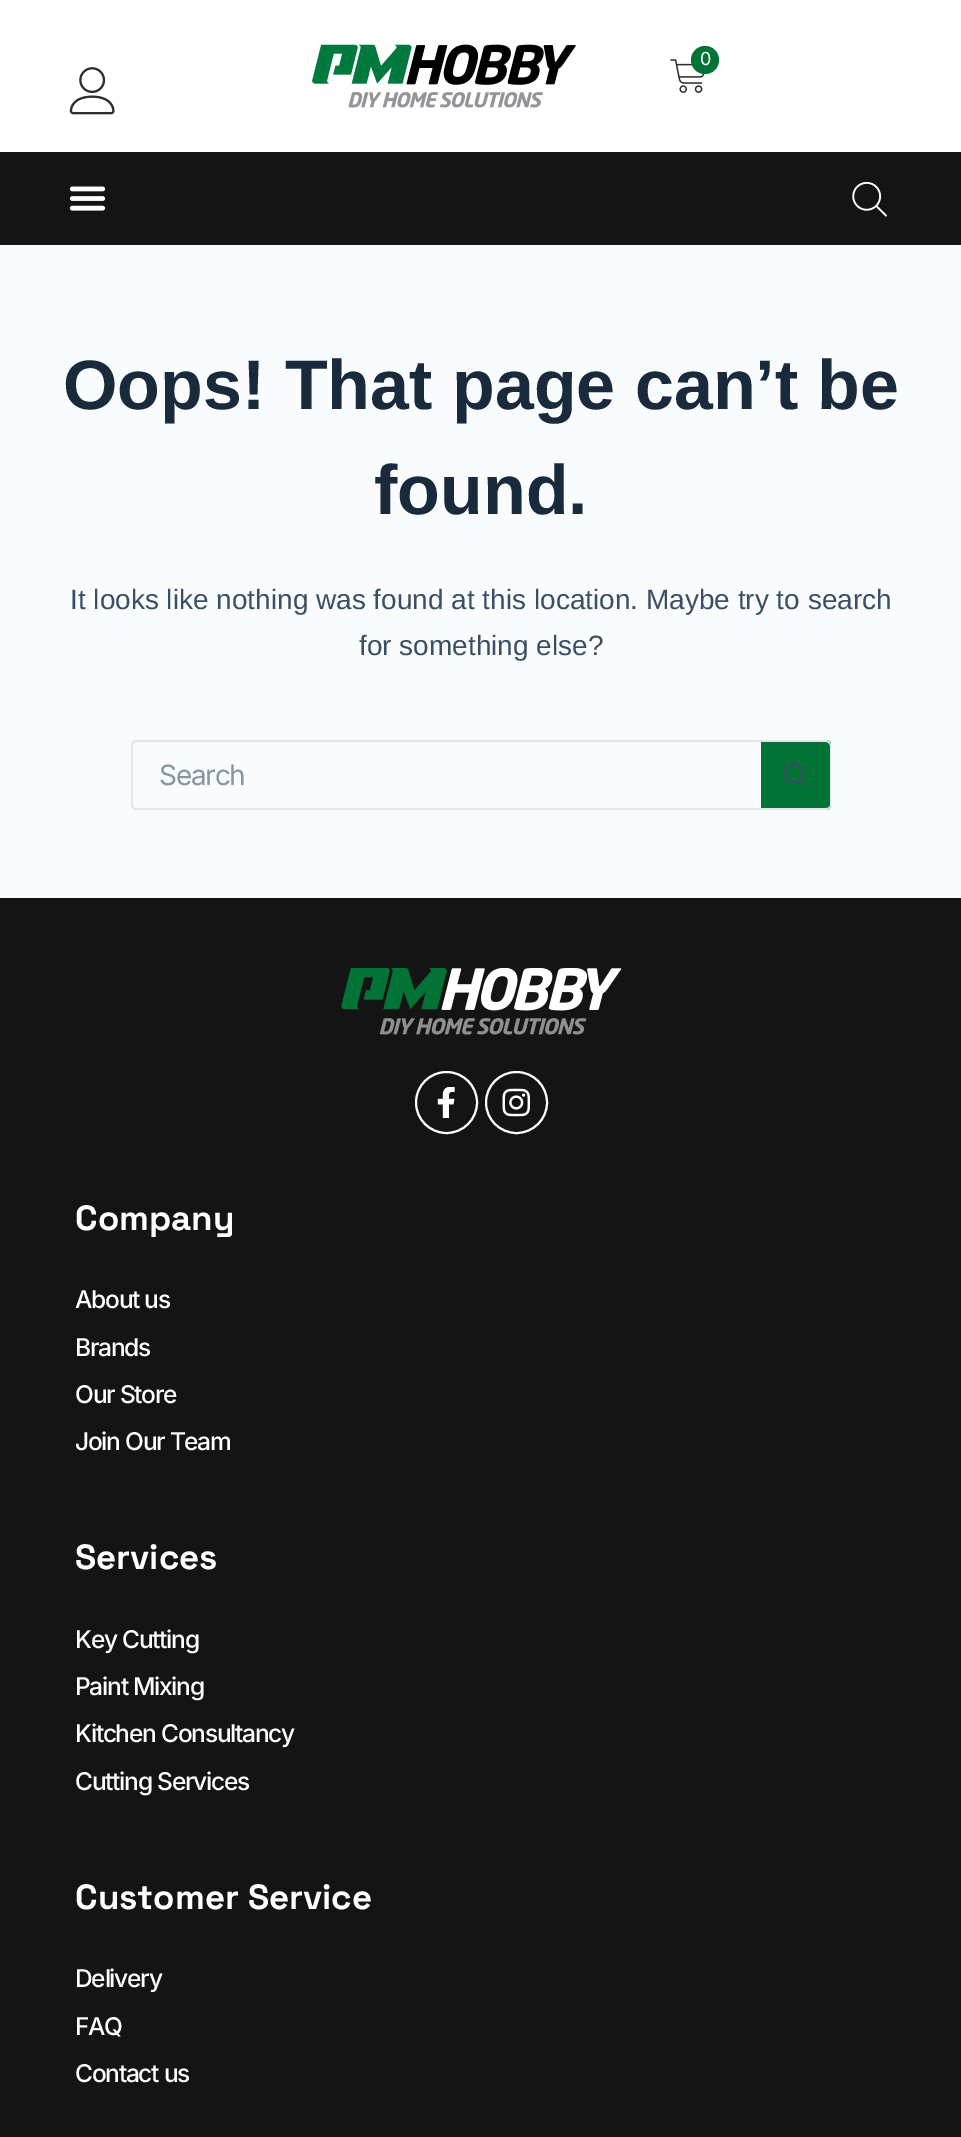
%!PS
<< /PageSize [961 2137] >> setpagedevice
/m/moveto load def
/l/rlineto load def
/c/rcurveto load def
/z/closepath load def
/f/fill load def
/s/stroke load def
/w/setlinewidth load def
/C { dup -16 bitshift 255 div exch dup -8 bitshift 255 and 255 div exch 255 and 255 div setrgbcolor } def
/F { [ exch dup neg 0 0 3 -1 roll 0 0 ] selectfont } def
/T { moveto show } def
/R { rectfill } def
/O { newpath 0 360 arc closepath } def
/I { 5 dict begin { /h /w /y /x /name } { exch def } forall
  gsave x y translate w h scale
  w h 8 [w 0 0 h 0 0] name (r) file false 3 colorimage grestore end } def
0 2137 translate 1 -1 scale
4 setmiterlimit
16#FAFBFC C
0 0 961 2137 R
16#FFFFFF C
0 0 961 152 R
(1.rgb) 312 44 264 64 I
(2.rgb) 670 59 35 34 I
16#007335 C
705 60 14 O f
/Inter-Regular 18 F
16#FFFFFF C
700 65 m -1.25 0 (0) ashow
(3.rgb) 69 67 46 48 I
16#141414 C
0 152 961 93 R
(4.rgb) 69 186 37 25 I
(5.rgb) 852 182 35 35 I
/LiberationSans-Bold 70 F
16#192A3D C
(Oops! That page can’t be) 63 409 T
(found.) 374 514 T
/LiberationSans-Regular 28 F
16#3A4F66 C
(It looks like nothing was found at this location. Maybe try to search) 70 609 T
(for something else?) 359 655 T
16#E1E8ED C
136 740 m 625 0 l 0 70 l -625 0 l -2 0 -5 -2 -5 -5 c 0 -59 l 0 -3 3 -6 5 -6 c z 136 742 m 625 0 l 0 66 l -625 0 l -1 0 -3 -1 -3 -3 c 0 -59 l 0 -2 2 -4 3 -4 c z eofill
/Inter-Regular 28 F
16#8794A2 C
159 785 m -1.25 0 (Search) ashow
16#007335 C
761 740 m 65 0 l 3 0 5 2 5 5 c 0 60 l 0 3 -2 5 -5 5 c -65 0 l z f
16#E1E8ED C
761 740 m 65 0 l 3 0 5 3 5 6 c 0 59 l 0 3 -2 5 -5 5 c -65 0 l z 761 742 m 65 0 l 2 0 4 2 4 4 c 0 59 l 0 2 -2 3 -4 3 c -65 0 l z eofill
(6.rgb) 784 763 23 23 I
16#141414 C
0 898 961 1239 R
(7.rgb) 341 968 280 67 I
16#FFFFFF C
2 w
446.5 1102.5 30.5 O s
(8.rgb) 437 1087 18 31 I
516.5 1102.5 30.5 O s
(9.rgb) 502 1088 29 29 I
/SpaceGrotesk-Bold 35 F
(Company) 75 1230 T
/Inter-Medium 24.5 F
75 1308 m -1.25 0 (About us) ashow
75 1356 m -1.25 0 (Brands) ashow
75 1403 m -1.25 0 (Our Store) ashow
75 1450 m -1.25 0 (Join Our Team) ashow
/SpaceGrotesk-Bold 35 F
(Services) 75 1569 T
/Inter-Medium 24.5 F
75 1648 m -1.25 0 (Key Cutting) ashow
75 1695 m -1.25 0 (Paint Mixing) ashow
75 1742 m -1.25 0 (Kitchen Consultancy) ashow
75 1790 m -1.25 0 (Cutting Services) ashow
/SpaceGrotesk-Bold 35 F
(Customer Service) 75 1909 T
/Inter-Medium 24.5 F
75 1987 m -1.25 0 (Delivery) ashow
75 2035 m -1.25 0 (FAQ) ashow
75 2082 m -1.25 0 (Contact us) ashow
showpage
